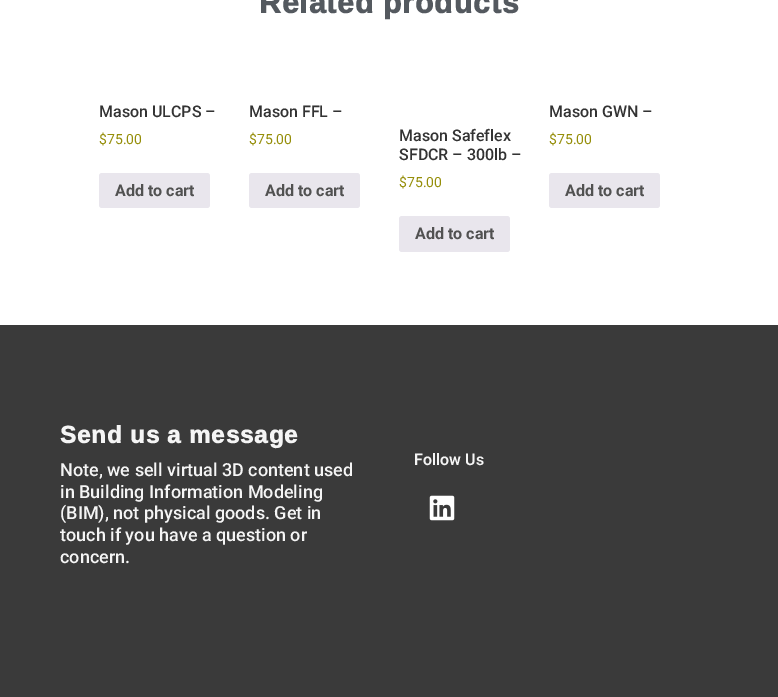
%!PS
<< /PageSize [778 697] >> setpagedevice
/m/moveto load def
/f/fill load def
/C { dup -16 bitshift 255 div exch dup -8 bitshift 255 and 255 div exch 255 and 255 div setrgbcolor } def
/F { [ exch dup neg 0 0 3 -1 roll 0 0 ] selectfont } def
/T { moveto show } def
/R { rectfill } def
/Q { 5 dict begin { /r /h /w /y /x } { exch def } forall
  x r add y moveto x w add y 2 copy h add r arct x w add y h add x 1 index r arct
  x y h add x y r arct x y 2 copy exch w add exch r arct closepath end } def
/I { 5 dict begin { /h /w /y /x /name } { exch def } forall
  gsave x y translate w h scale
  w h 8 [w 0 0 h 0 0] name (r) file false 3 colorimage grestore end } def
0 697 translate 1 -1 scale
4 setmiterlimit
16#FFFFFF C
0 0 778 697 R
/Ramabhadra-Bold 30 F
16#54595F C
259 13 m 1 0 (Related products) ashow
/Roboto-Medium 16 F
16#333333 C
(Mason ULCPS –) 99 117 T
/Roboto-Regular 14 F
16#958E09 C
($75.00) 99 144 T
16#E9E6ED C
99 173 111 35 3 Q f
/Roboto-Bold 16 F
16#515151 C
(Add to cart) 115 196 T
/Roboto-Medium 16 F
16#333333 C
(Mason FFL –) 249 117 T
/Roboto-Regular 14 F
16#958E09 C
($75.00) 249 144 T
16#E9E6ED C
249 173 111 35 3 Q f
/Roboto-Bold 16 F
16#515151 C
(Add to cart) 265 196 T
/Roboto-Medium 16 F
16#333333 C
(Mason Safeflex) 399 141 T
(SFDCR – 300lb –) 399 160 T
/Roboto-Regular 14 F
16#958E09 C
($75.00) 399 187 T
16#E9E6ED C
399 216 111 36 3 Q f
/Roboto-Bold 16 F
16#515151 C
(Add to cart) 415 239 T
/Roboto-Medium 16 F
16#333333 C
(Mason GWN –) 549 117 T
/Roboto-Regular 14 F
16#958E09 C
($75.00) 549 144 T
16#E9E6ED C
549 173 111 35 3 Q f
/Roboto-Bold 16 F
16#515151 C
(Add to cart) 565 196 T
16#3A3A3A C
0 325 778 372 R
/Ramabhadra-Bold 24 F
16#F5F5F5 C
60 443 m 1 0 (Send us a message) ashow
/Roboto-Medium 18 F
(Note, we sell virtual 3D content used) 60 476 T
(in Building Information Modeling) 60 498 T
(\(BIM\), not physical goods. Get in) 60 519 T
(touch if you have a question or) 60 541 T
(concern.) 60 563 T
/Roboto-SemiBold 16 F
(Follow Us) 414 465 T
(1.rgb) 429 495 26 26 I
showpage
